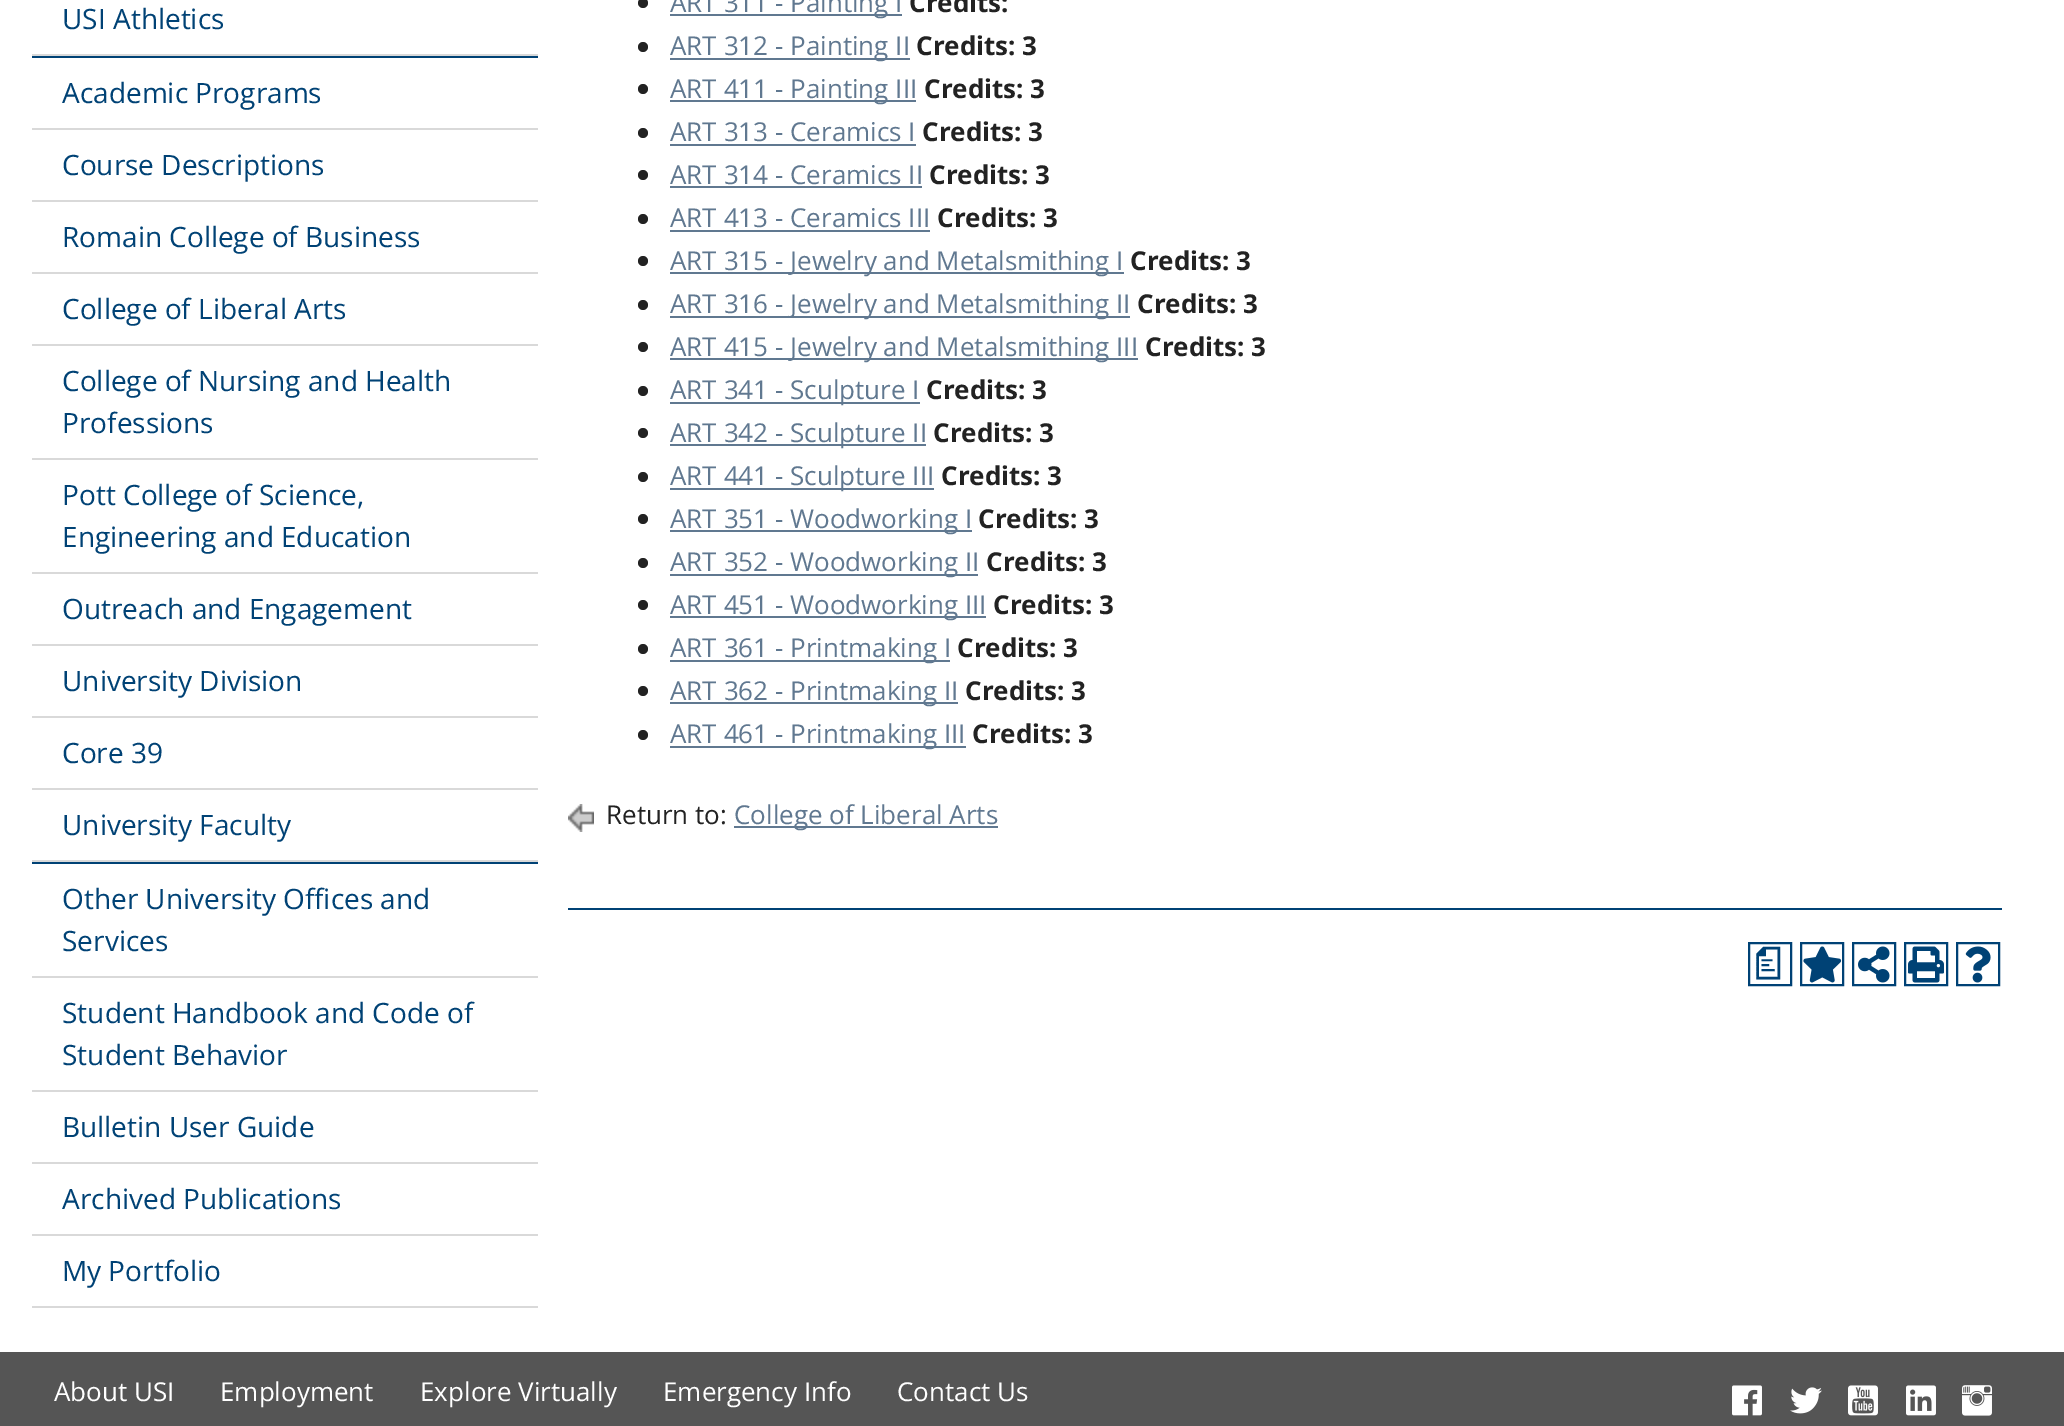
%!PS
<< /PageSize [2064 1426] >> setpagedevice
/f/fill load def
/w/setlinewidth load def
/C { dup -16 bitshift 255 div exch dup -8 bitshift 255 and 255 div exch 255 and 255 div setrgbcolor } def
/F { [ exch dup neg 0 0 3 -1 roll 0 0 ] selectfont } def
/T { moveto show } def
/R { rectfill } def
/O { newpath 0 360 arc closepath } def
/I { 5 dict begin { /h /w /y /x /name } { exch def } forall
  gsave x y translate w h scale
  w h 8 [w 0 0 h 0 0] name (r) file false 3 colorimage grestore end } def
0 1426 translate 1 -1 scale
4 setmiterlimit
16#FFFFFF C
0 0 2064 1426 R
16#D9D9D9 C
32 54 506 2 R
/OpenSans-Regular 28 F
16#004275 C
(USI Athletics) 62 29 T
32 56 506 2 R
16#D9D9D9 C
32 128 506 2 R
16#004275 C
(Academic Programs) 62 103 T
16#D9D9D9 C
32 200 506 2 R
16#004275 C
(Course Descriptions) 62 175 T
16#D9D9D9 C
32 272 506 2 R
16#004275 C
(Romain College of Business) 62 247 T
16#D9D9D9 C
32 344 506 2 R
16#004275 C
(College of Liberal Arts) 62 319 T
16#D9D9D9 C
32 458 506 2 R
16#004275 C
(College of Nursing and Health) 62 391 T
(Professions) 62 433 T
16#D9D9D9 C
32 572 506 2 R
16#004275 C
(Pott College of Science,) 62 505 T
(Engineering and Education) 62 547 T
16#D9D9D9 C
32 644 506 2 R
16#004275 C
(Outreach and Engagement) 62 619 T
16#D9D9D9 C
32 716 506 2 R
16#004275 C
(University Division) 62 691 T
16#D9D9D9 C
32 788 506 2 R
16#004275 C
(Core 39) 62 763 T
16#D9D9D9 C
32 860 506 2 R
16#004275 C
(University Faculty) 62 835 T
32 862 506 2 R
16#D9D9D9 C
32 976 506 2 R
16#004275 C
(Other University Offices and) 62 909 T
(Services) 62 951 T
16#D9D9D9 C
32 1090 506 2 R
16#004275 C
(Student Handbook and Code of) 62 1023 T
(Student Behavior) 62 1065 T
16#D9D9D9 C
32 1162 506 2 R
16#004275 C
(Bulletin User Guide) 62 1137 T
16#D9D9D9 C
32 1234 506 2 R
16#004275 C
(Archived Publications) 62 1209 T
16#D9D9D9 C
32 1306 506 2 R
16#004275 C
(My Portfolio) 62 1281 T
16#222222 C
643 3 5 O f
16#607890 C
670 14 232 2 R
/OpenSans-Regular 26 F
(ART 311 - Painting I) 670 12 T
/OpenSans-Bold 26 F
16#222222 C
(Credits:) 909 12 T
643 47 5 O f
16#607890 C
670 58 240 2 R
/OpenSans-Regular 26 F
(ART 312 - Painting II) 670 55 T
/OpenSans-Bold 26 F
16#222222 C
(Credits: 3) 916 55 T
643 89 5 O f
16#607890 C
670 100 246 2 R
/OpenSans-Regular 26 F
(ART 411 - Painting III) 670 98 T
/OpenSans-Bold 26 F
16#222222 C
(Credits: 3) 924 98 T
643 133 5 O f
/OpenSans-Regular 26 F
16#607890 C
(ART 313 - Ceramics I) 670 141 T
670 144 246 2 R
/OpenSans-Bold 26 F
16#222222 C
(Credits: 3) 922 141 T
643 175 5 O f
/OpenSans-Regular 26 F
16#607890 C
(ART 314 - Ceramics II) 670 184 T
670 186 252 2 R
/OpenSans-Bold 26 F
16#222222 C
(Credits: 3) 929 184 T
643 219 5 O f
/OpenSans-Regular 26 F
16#607890 C
(ART 413 - Ceramics III) 670 227 T
670 230 260 2 R
/OpenSans-Bold 26 F
16#222222 C
(Credits: 3) 937 227 T
643 261 5 O f
16#607890 C
670 272 454 2 R
/OpenSans-Regular 26 F
(ART 315 - Jewelry and Metalsmithing I) 670 270 T
/OpenSans-Bold 26 F
16#222222 C
(Credits: 3) 1130 270 T
643 305 5 O f
16#607890 C
670 316 460 2 R
/OpenSans-Regular 26 F
(ART 316 - Jewelry and Metalsmithing II) 670 313 T
/OpenSans-Bold 26 F
16#222222 C
(Credits: 3) 1137 313 T
643 347 5 O f
16#607890 C
670 358 468 2 R
/OpenSans-Regular 26 F
(ART 415 - Jewelry and Metalsmithing III) 670 356 T
/OpenSans-Bold 26 F
16#222222 C
(Credits: 3) 1145 356 T
643 391 5 O f
16#607890 C
670 402 250 2 R
/OpenSans-Regular 26 F
(ART 341 - Sculpture I) 670 399 T
/OpenSans-Bold 26 F
16#222222 C
(Credits: 3) 926 399 T
643 433 5 O f
16#607890 C
670 444 256 2 R
/OpenSans-Regular 26 F
(ART 342 - Sculpture II) 670 442 T
/OpenSans-Bold 26 F
16#222222 C
(Credits: 3) 933 442 T
643 477 5 O f
16#607890 C
670 488 264 2 R
/OpenSans-Regular 26 F
(ART 441 - Sculpture III) 670 485 T
/OpenSans-Bold 26 F
16#222222 C
(Credits: 3) 941 485 T
643 519 5 O f
16#607890 C
670 530 302 2 R
/OpenSans-Regular 26 F
(ART 351 - Woodworking I) 670 528 T
/OpenSans-Bold 26 F
16#222222 C
(Credits: 3) 978 528 T
643 563 5 O f
16#607890 C
670 574 308 2 R
/OpenSans-Regular 26 F
(ART 352 - Woodworking II) 670 571 T
/OpenSans-Bold 26 F
16#222222 C
(Credits: 3) 986 571 T
643 605 5 O f
16#607890 C
670 616 316 2 R
/OpenSans-Regular 26 F
(ART 451 - Woodworking III) 670 614 T
/OpenSans-Bold 26 F
16#222222 C
(Credits: 3) 993 614 T
643 649 5 O f
16#607890 C
670 660 280 2 R
/OpenSans-Regular 26 F
(ART 361 - Printmaking I) 670 657 T
/OpenSans-Bold 26 F
16#222222 C
(Credits: 3) 957 657 T
643 691 5 O f
16#607890 C
670 702 288 2 R
/OpenSans-Regular 26 F
(ART 362 - Printmaking II) 670 700 T
/OpenSans-Bold 26 F
16#222222 C
(Credits: 3) 965 700 T
643 735 5 O f
16#607890 C
670 746 296 2 R
/OpenSans-Regular 26 F
(ART 461 - Printmaking III) 670 743 T
/OpenSans-Bold 26 F
16#222222 C
(Credits: 3) 972 743 T
(1.rgb) 568 804 26 28 I
/OpenSans-Regular 26 F
(Return to:) 606 824 T
16#607890 C
734 826 264 2 R
(College of Liberal Arts) 734 824 T
16#004275 C
568 908 1434 2 R
2 w
1749 943 42 42 rectstroke
/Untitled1-Medium 36 F
(a) 1750 974 T
1801 943 42 42 rectstroke
(2.rgb) 1803 946 39 37 I
1853 943 42 42 rectstroke
(3.rgb) 1858 946 32 37 I
1905 943 42 42 rectstroke
(4.rgb) 1908 946 36 37 I
1957 943 42 42 rectstroke
(5.rgb) 1965 946 26 37 I
16#555555 C
0 1352 2064 74 R
/OpenSans-Regular 26 F
16#FFFFFF C
(About USI) 54 1401 T
(Employment) 220 1401 T
(Explore Virtually) 420 1401 T
(Emergency Info) 663 1401 T
(Contact Us) 897 1401 T
(6.rgb) 1732 1385 30 31 I
(7.rgb) 1790 1387 32 27 I
(8.rgb) 1848 1385 30 31 I
(9.rgb) 1906 1385 30 31 I
(10.rgb) 1962 1385 30 31 I
showpage
